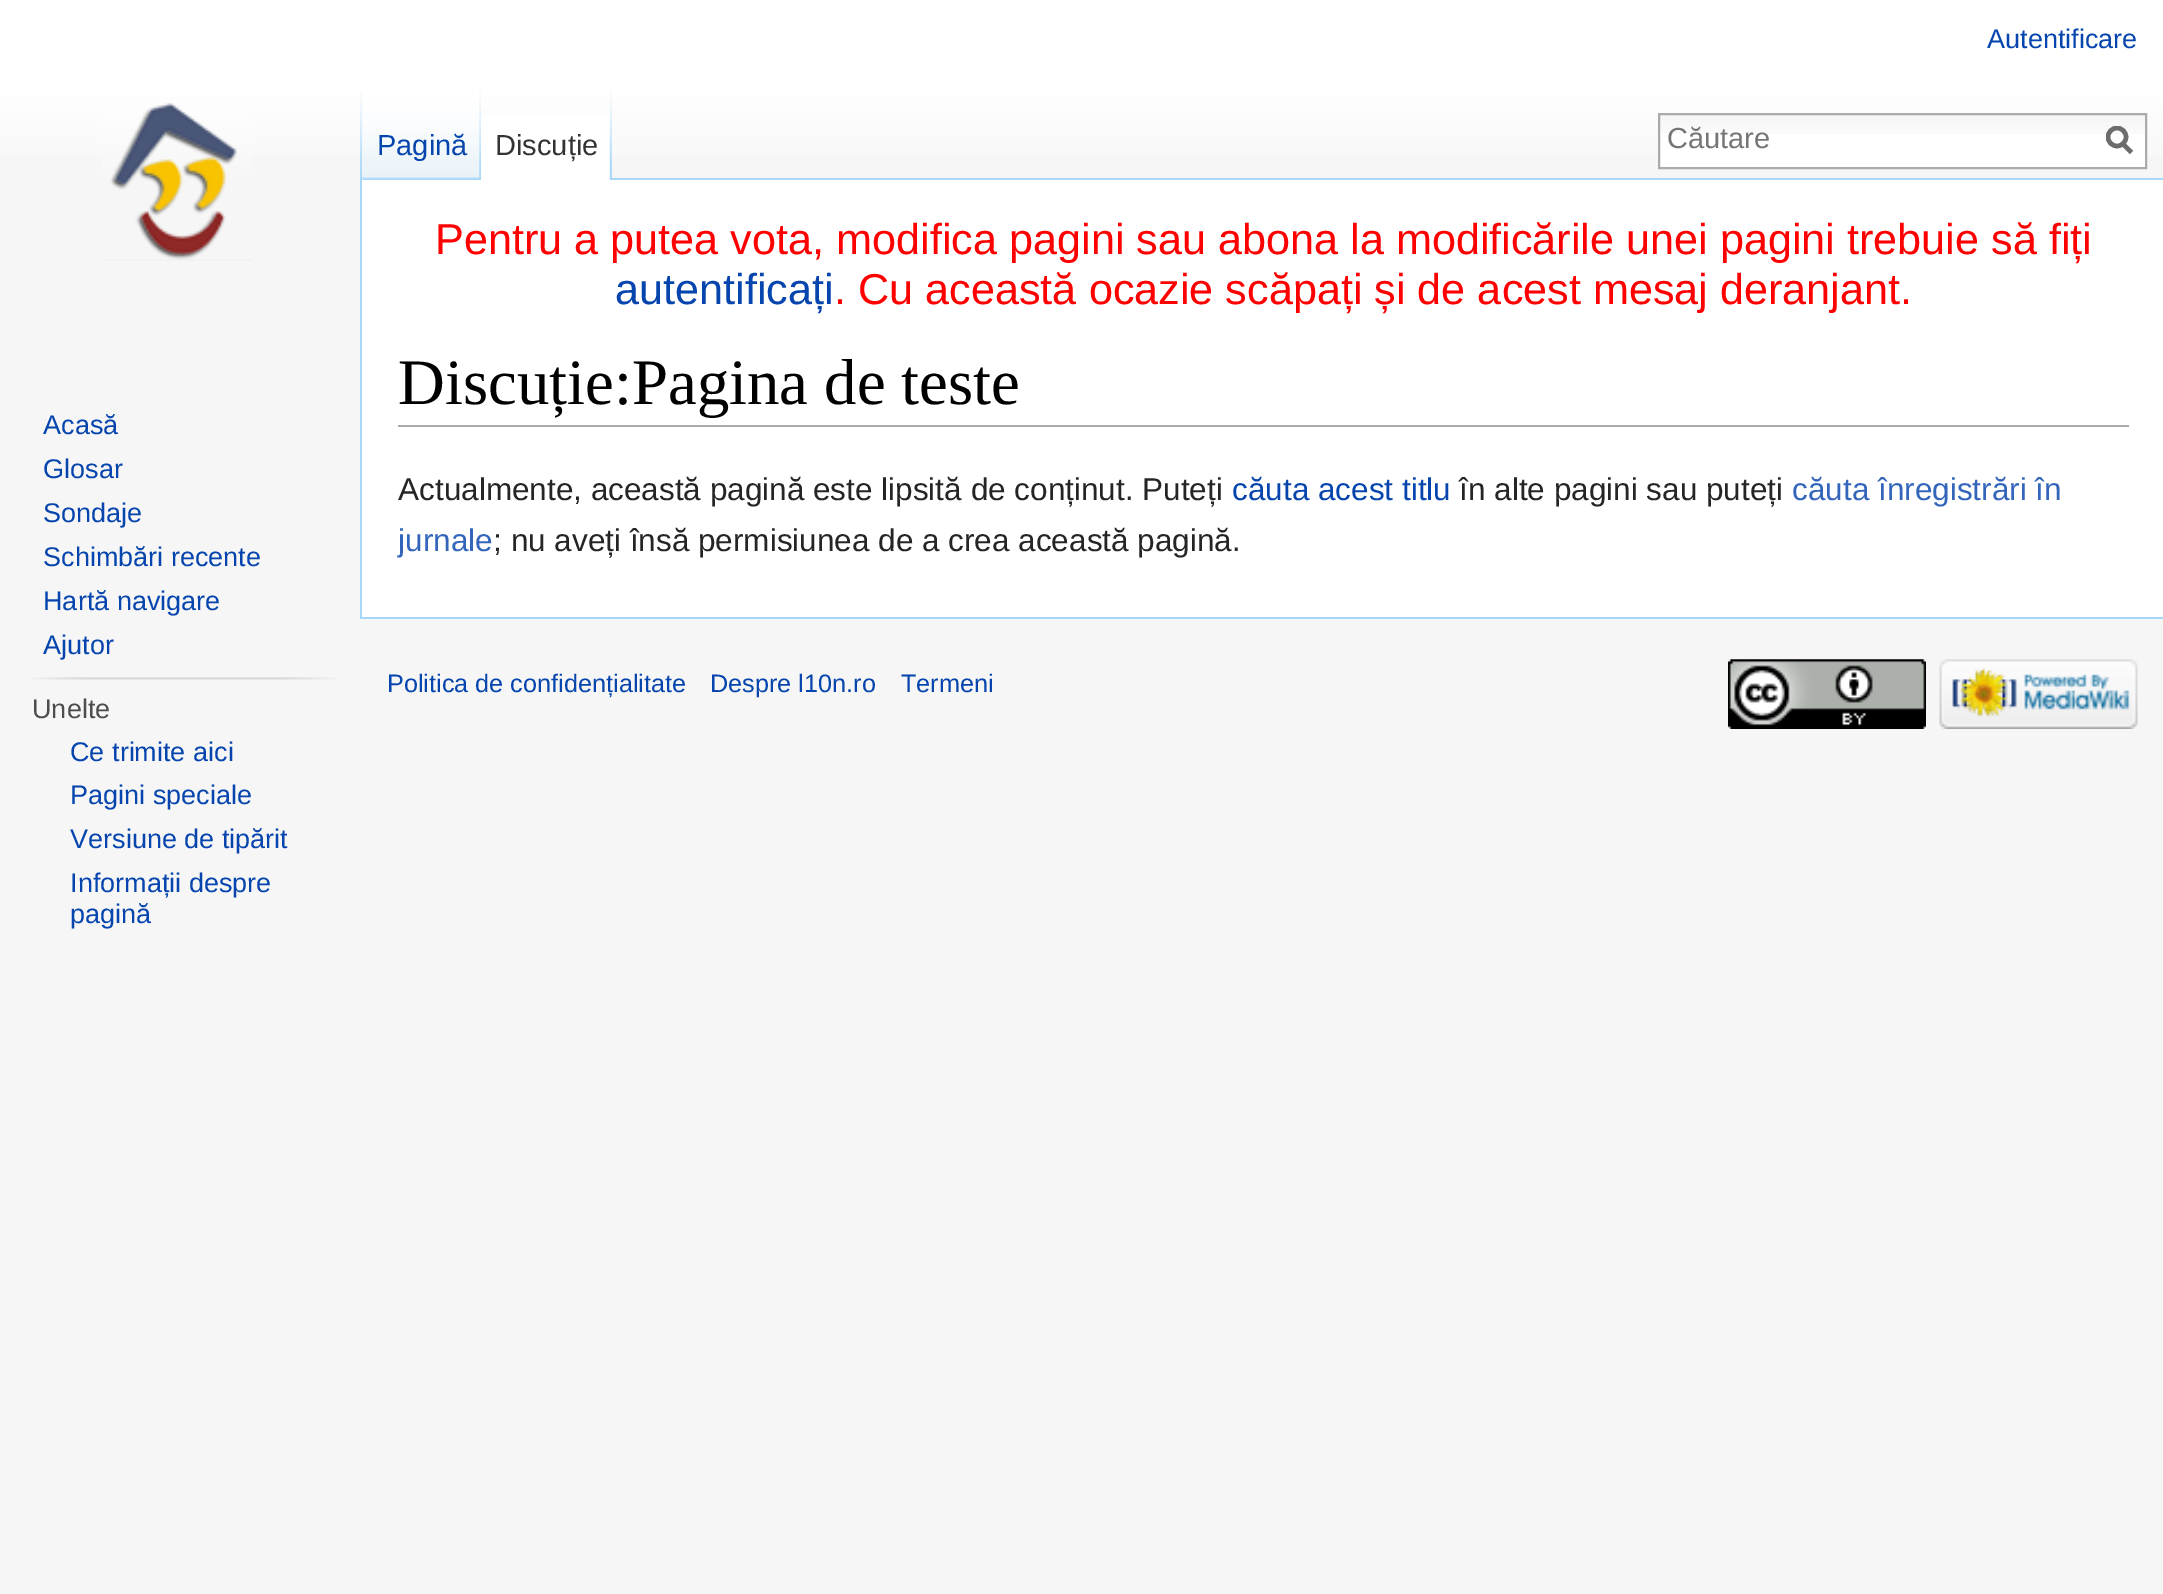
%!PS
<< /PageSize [2163 1594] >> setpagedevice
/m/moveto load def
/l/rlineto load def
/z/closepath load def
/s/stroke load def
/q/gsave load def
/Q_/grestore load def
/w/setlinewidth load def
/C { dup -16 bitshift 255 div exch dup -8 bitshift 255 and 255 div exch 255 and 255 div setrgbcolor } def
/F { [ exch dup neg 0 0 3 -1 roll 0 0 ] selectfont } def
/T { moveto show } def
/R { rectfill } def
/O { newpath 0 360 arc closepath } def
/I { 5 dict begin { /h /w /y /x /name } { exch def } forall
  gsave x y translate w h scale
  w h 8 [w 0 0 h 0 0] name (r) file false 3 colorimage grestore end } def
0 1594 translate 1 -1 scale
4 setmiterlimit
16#F6F6F6 C
0 0 2163 1594 R
q 0 0 m 2163 0 l 0 155 l -2163 0 l z clip newpath
<< /ShadingType 2 /ColorSpace /DeviceRGB /Coords [1082 0 1082 180] /Extend [true true] /Function << /FunctionType 3 /Domain [0 1] /Functions [<< /FunctionType 2 /Domain [0 1] /C0 [1 1 1] /C1 [1 1 1] /N 1 >> << /FunctionType 2 /Domain [0 1] /C0 [1 1 1] /C1 [.965 .965 .965] /N 1 >>] /Bounds [.5] /Encode [0 1 0 1] >> >> shfill Q_
/LiberationSans-Regular 27 F
16#0645AD C
(Autentificare) 1987 48 T
(1.rgb) 360 90 3 88 I
16#A7D7F9 C
360 178 1803 2 R
(2.rgb) 362 90 119 90 I
(3.rgb) 479 91 2 89 I
/LiberationSans-Regular 29 F
16#0645AD C
(Pagină) 377 155 T
16#FFFFFF C
481 115 131 65 R
(4.rgb) 609 91 3 89 I
16#333333 C
(Discuție) 495 155 T
16#FFFFFF C
1660 134 485 33 R
(5.rgb) 1660 115 485 19 I
16#AAAAAA C
2 w
1659 114 487 54 rectstroke
16#757575 C
(Căutare) 1667 148 T
16#6C6C6C C
4.5 w
2131.5 152.5 m -9 -9 l s
q
2106 126 27 29 rectclip
2117 137 9 O s
Q_
(6.rgb) 102 103 151 158 I
/LiberationSans-Regular 27 F
16#0645AD C
(Acasă) 43 434 T
(Glosar) 43 478 T
(Sondaje) 43 522 T
(Schimbări recente) 43 566 T
(Hartă navigare) 43 610 T
(Ajutor) 43 654 T
(7.rgb) 31 677 305 3 I
16#4D4D4D C
(Unelte) 32 718 T
16#0645AD C
(Ce trimite aici) 70 761 T
(Pagini speciale) 70 804 T
(Versiune de tipărit) 70 848 T
(Informații despre) 70 892 T
(pagină) 70 923 T
16#FFFFFF C
362 180 1801 437 R
16#A7D7F9 C
360 617 1803 2 R
360 178 2 441 R
/LiberationSans-Regular 43.2 F
16#FF0000 C
(Pentru a putea vota, modifica pagini sau abona la modificările unei pagini trebuie să fiți) 435 254 T
16#0645AD C
(autentificați) 615 304 T
16#FF0000 C
(. Cu această ocazie scăpați și de acest mesaj deranjant.) 834 304 T
16#AAAAAA C
398 425 1731 2 R
/LiberationSerif-Regular 64.75 F
16#000000 C
(Discuție:Pagina de teste) 398 404 T
/LiberationSans-Regular 31.5 F
16#252525 C
(Actualmente, această pagină este lipsită de conținut. Puteți) 398 500 T
16#0645AD C
(căuta acest titlu) 1232 500 T
16#252525 C
(în alte pagini sau puteți) 1459 500 T
16#3366BB C
(căuta înregistrări în) 1792 500 T
(jurnale) 398 551 T
16#252525 C
(; nu aveți însă permisiunea de a crea această pagină.) 493 551 T
/LiberationSans-Regular 25.25 F
16#0645AD C
(Politica de confidențialitate) 387 692 T
(Despre l10n.ro) 710 692 T
(Termeni) 901 692 T
(8.rgb) 1728 659 198 70 I
(9.rgb) 1939 659 199 70 I
showpage
